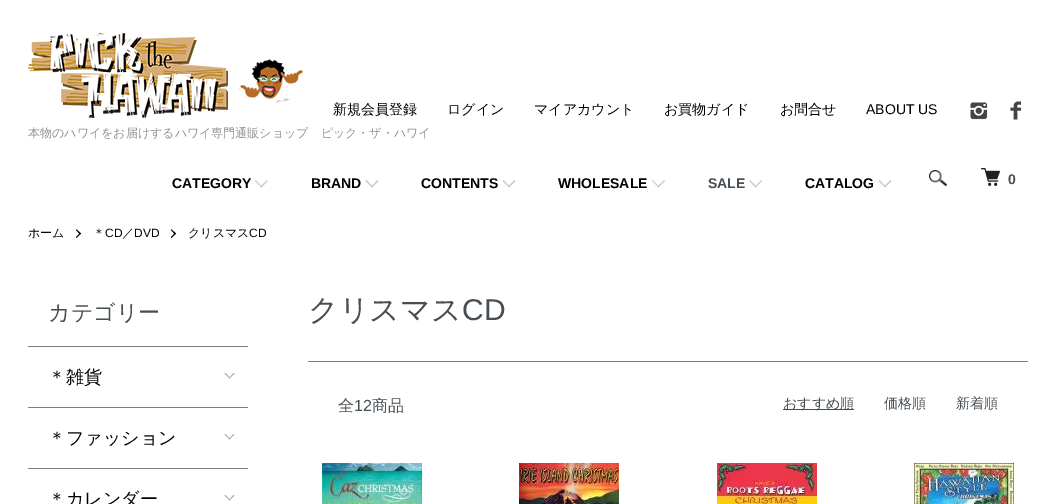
%!PS
<< /PageSize [1056 504] >> setpagedevice
/m/moveto load def
/l/rlineto load def
/z/closepath load def
/f/fill load def
/C { dup -16 bitshift 255 div exch dup -8 bitshift 255 and 255 div exch 255 and 255 div setrgbcolor } def
/F { [ exch dup neg 0 0 3 -1 roll 0 0 ] selectfont } def
/T { moveto show } def
/R { rectfill } def
/I { 5 dict begin { /h /w /y /x /name } { exch def } forall
  gsave x y translate w h scale
  w h 8 [w 0 0 h 0 0] name (r) file false 3 colorimage grestore end } def
0 504 translate 1 -1 scale
4 setmiterlimit
16#FFFFFF C
0 0 1056 504 R
/WenQuanYiZenHei-Medium 14 F
16#000000 C
(新規会員登録) 333 114 T
(ログイン) 447 114 T
(マイアカウント) 534 114 T
(お買物ガイド) 664 114 T
(お問合せ) 780 114 T
/LiberationSans-Regular 14 F
(ABOUT US) 866 114 T
(1.rgb) 970 102 18 18 I
(2.rgb) 1010 101 12 19 I
/LiberationSans-Bold 14 F
(CATEGORY) 172 188 T
16#CCCCCC C
267 180 m .5 1 l -6 6.5 l -1 -1 l z f
255.5 180 m 6.5 6.5 l -.5 1 l -6.5 -6.5 l z f
16#000000 C
(BRAND) 311 188 T
16#CCCCCC C
377.5 180 m 1 1 l -6.5 6.5 l -1 -1 l z f
366.5 180 m 6 6.5 l -.5 1 l -6.5 -6.5 l z f
16#000000 C
(CONTENTS) 421 188 T
16#CCCCCC C
514.5 180 m 1 1 l -6.5 6.5 l -1 -1 l z f
503.5 180 m 6 6.5 l -.5 1 l -6.5 -6.5 l z f
16#000000 C
(WHOLESALE) 558 188 T
16#CCCCCC C
664 180 m 1 1 l -6.5 6.5 l -1 -1 l z f
652.5 180 m 6.5 6.5 l -.5 1 l -6.5 -6.5 l z f
16#464E54 C
(SALE) 708 188 T
16#CCCCCC C
761.5 180 m .5 1 l -6.5 6.5 l -.5 -1 l z f
750 180 m 6.5 6.5 l -1 1 l -6 -6.5 l z f
16#000000 C
(CATALOG) 805 188 T
16#CCCCCC C
890.5 180 m 1 1 l -6.5 6.5 l -1 -1 l z f
879.5 180 m 6 6.5 l -.5 1 l -6.5 -6.5 l z f
(3.rgb) 28 32 275 86 I
/WenQuanYiZenHei-Medium 12 F
16#909090 C
(本物のハワイをお届けするハワイ専門通販ショップ　ピック・ザ・ハワイ) 28 137 T
(4.rgb) 929 170 18 16 I
(5.rgb) 981 168 19 18 I
/LiberationSans-Bold 14 F
16#464E54 C
(0) 1008 184 T
/WenQuanYiZenHei-Medium 12 F
16#000000 C
(ホーム) 28 237 T
76 230 m .5 -.5 l 4.5 4 l -1 1 l z f
76 237 m 4 -4 l 1 .5 l -4.5 4.5 l z f
(＊) 93 237 T
/LiberationSans-Regular 12 F
(CD) 105 237 T
/WenQuanYiZenHei-Medium 12 F
(／) 122 237 T
/LiberationSans-Regular 12 F
(DVD) 134 237 T
171 230 m .5 -.5 l 4.5 4 l -1 1 l z f
171 237 m 4 -4 l 1 .5 l -4.5 4.5 l z f
/WenQuanYiZenHei-Medium 12 F
(クリスマス) 188 237 T
/LiberationSans-Regular 12 F
(CD) 249 237 T
/WenQuanYiZenHei-Medium 22 F
16#464E54 C
(カテゴリー) 48 320 T
16#7D7D7D C
28 346 220 1 R
/WenQuanYiZenHei-Medium 18 F
16#000000 C
(＊雑貨) 48 383 T
16#AAAAAA C
233.5 373 m 1 .5 l -5 5 l -.5 -.5 l z f
225.5 373 m 4.5 5 l -.5 .5 l -5 -5 l z f
16#7D7D7D C
28 407 220 1 R
16#000000 C
(＊ファッション) 48 444 T
16#AAAAAA C
233.5 434 m 1 .5 l -5 5 l -.5 -.5 l z f
225.5 434 m 4.5 5 l -.5 .5 l -5 -5 l z f
16#7D7D7D C
28 468 220 1 R
16#000000 C
(＊カレンダー) 48 505 T
16#AAAAAA C
233.5 495 m 1 .5 l -5 5 l -.5 -.5 l z f
225.5 495 m 4.5 5 l -.5 .5 l -5 -5 l z f
/WenQuanYiZenHei-Medium 30 F
16#464E54 C
(クリスマス) 308 320 T
/LiberationSans-Regular 30 F
(CD) 462 320 T
16#7D7D7D C
308 361 720 1 R
/WenQuanYiZenHei-Medium 16 F
16#464E54 C
(全) 338 411 T
/LiberationSans-Regular 16 F
(12) 354 411 T
/WenQuanYiZenHei-Medium 16 F
(商品) 372 411 T
783 409 71 1 R
/WenQuanYiZenHei-Medium 14 F
(おすすめ順) 783 408 T
(価格順) 884 408 T
(新着順) 956 408 T
(6.rgb) 322 463 100 41 I
(7.rgb) 519 463 100 41 I
(8.rgb) 717 463 100 41 I
(9.rgb) 914 463 100 41 I
showpage
